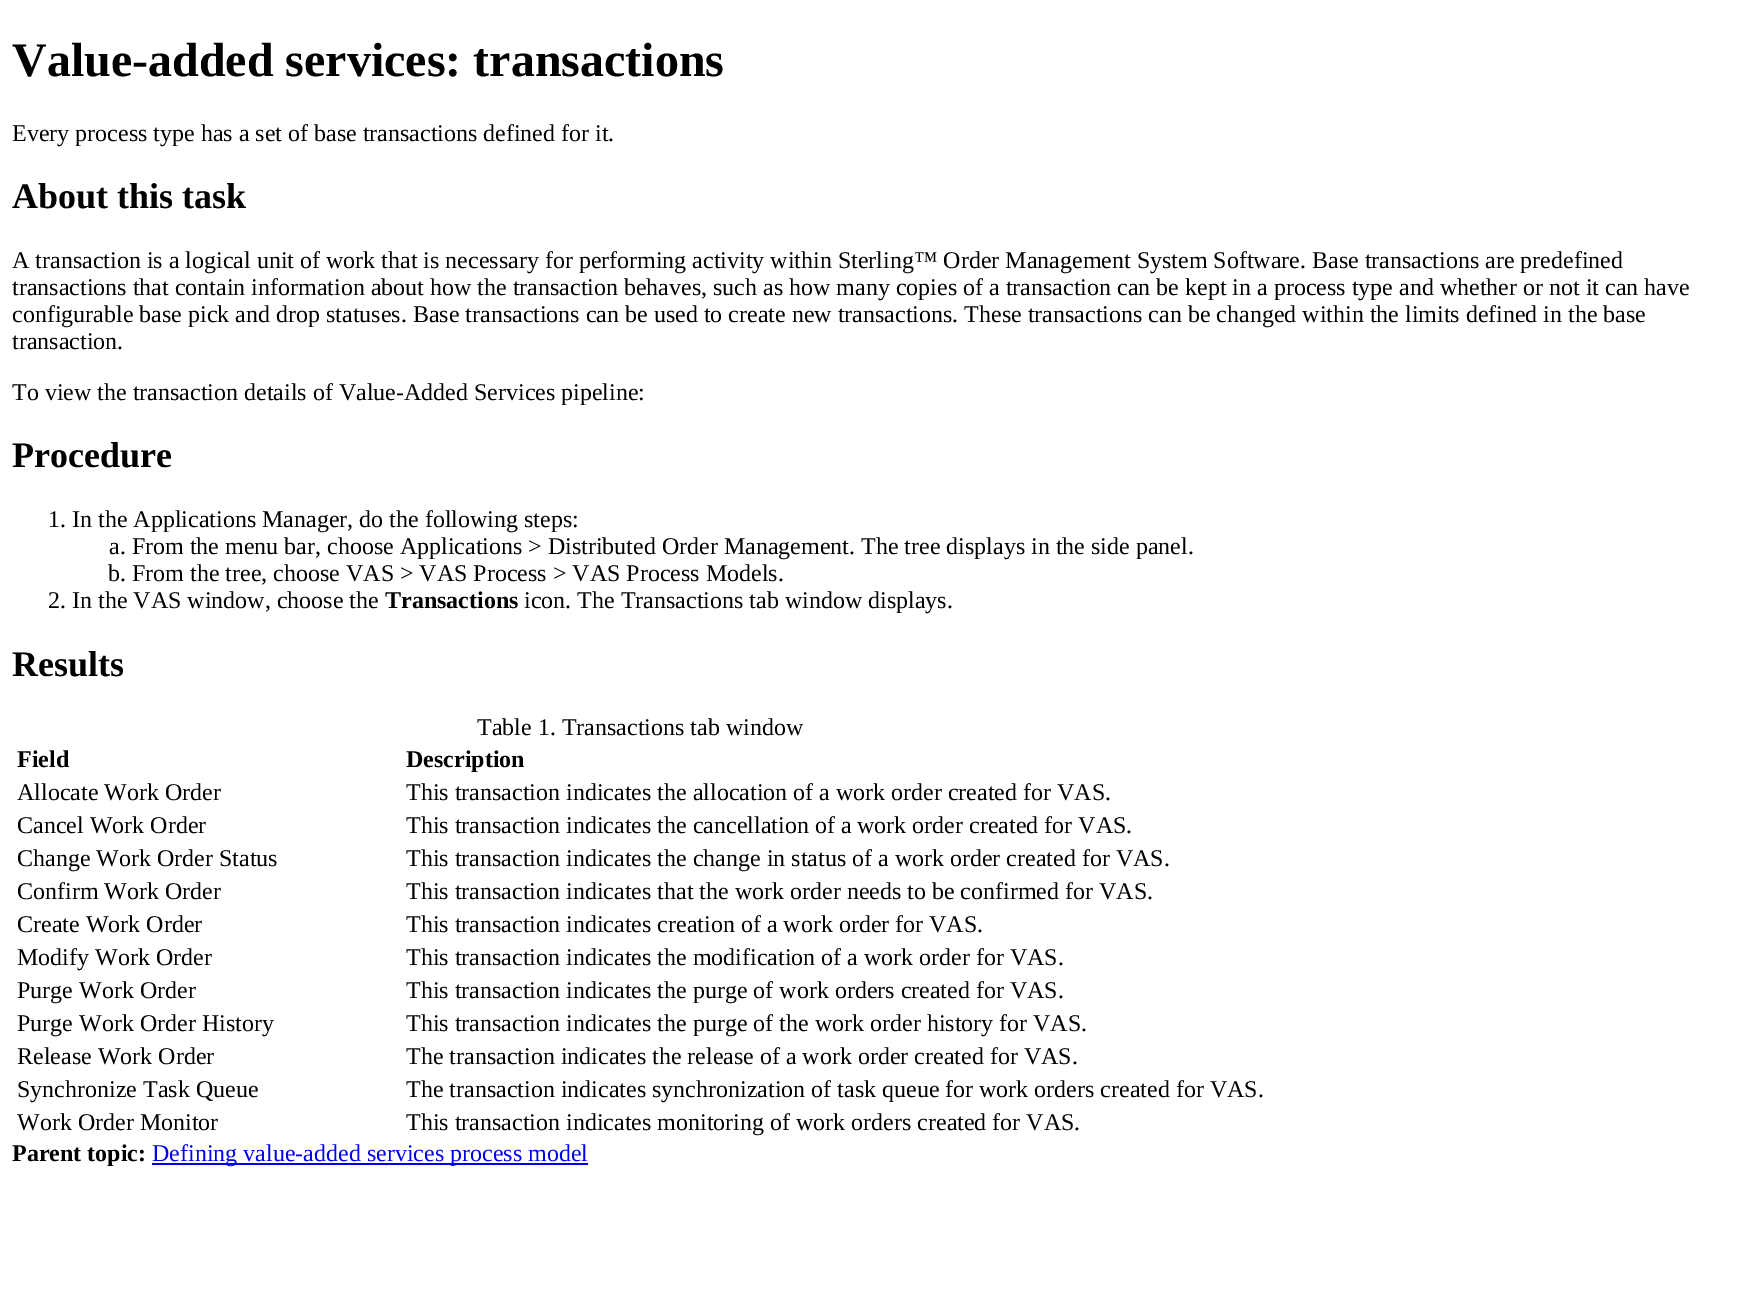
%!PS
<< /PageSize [1749 1308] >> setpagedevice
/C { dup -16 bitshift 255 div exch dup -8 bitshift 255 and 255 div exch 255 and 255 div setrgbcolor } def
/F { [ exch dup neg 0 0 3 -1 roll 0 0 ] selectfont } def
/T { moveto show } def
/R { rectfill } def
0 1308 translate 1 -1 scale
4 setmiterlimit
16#FFFFFF C
0 0 1749 1308 R
/LiberationSerif-Bold 48 F
16#000000 C
(Value-added services: transactions) 12 76 T
/LiberationSerif-Regular 24 F
(Every process type has a set of base transactions defined for it.) 12 141 T
/LiberationSerif-Bold 36 F
(About this task) 12 208 T
/LiberationSerif-Regular 24 F
(A transaction is a logical unit of work that is necessary for performing activity within Sterling™ Order Management System Software. Base transactions are predefined) 12 268 T
(transactions that contain information about how the transaction behaves, such as how many copies of a transaction can be kept in a process type and whether or not it can have) 12 295 T
(configurable base pick and drop statuses. Base transactions can be used to create new transactions. These transactions can be changed within the limits defined in the base) 12 322 T
(transaction.) 12 349 T
(To view the transaction details of Value-Added Services pipeline:) 12 400 T
/LiberationSerif-Bold 36 F
(Procedure) 12 467 T
/LiberationSerif-Regular 24 F
(1. In the Applications Manager, do the following steps:) 48 527 T
(a. From the menu bar, choose Applications > Distributed Order Management. The tree displays in the side panel.) 109 554 T
(b. From the tree, choose VAS > VAS Process > VAS Process Models.) 108 581 T
(2. In the VAS window, choose the) 48 608 T
/LiberationSerif-Bold 24 F
(Transactions) 385 608 T
/LiberationSerif-Regular 24 F
(icon. The Transactions tab window displays.) 524 608 T
/LiberationSerif-Bold 36 F
(Results) 12 676 T
/LiberationSerif-Regular 24 F
(Table 1. Transactions tab window) 477 735 T
/LiberationSerif-Bold 24 F
(Field) 17 767 T
(Description) 406 767 T
/LiberationSerif-Regular 24 F
(Allocate Work Order) 17 800 T
(This transaction indicates the allocation of a work order created for VAS.) 406 800 T
(Cancel Work Order) 17 833 T
(This transaction indicates the cancellation of a work order created for VAS.) 406 833 T
(Change Work Order Status) 17 866 T
(This transaction indicates the change in status of a work order created for VAS.) 406 866 T
(Confirm Work Order) 17 899 T
(This transaction indicates that the work order needs to be confirmed for VAS.) 406 899 T
(Create Work Order) 17 932 T
(This transaction indicates creation of a work order for VAS.) 406 932 T
(Modify Work Order) 17 965 T
(This transaction indicates the modification of a work order for VAS.) 406 965 T
(Purge Work Order) 17 998 T
(This transaction indicates the purge of work orders created for VAS.) 406 998 T
(Purge Work Order History) 17 1031 T
(This transaction indicates the purge of the work order history for VAS.) 406 1031 T
(Release Work Order) 17 1064 T
(The transaction indicates the release of a work order created for VAS.) 406 1064 T
(Synchronize Task Queue) 17 1097 T
(The transaction indicates synchronization of task queue for work orders created for VAS.) 406 1097 T
(Work Order Monitor) 17 1130 T
(This transaction indicates monitoring of work orders created for VAS.) 406 1130 T
/LiberationSerif-Bold 24 F
(Parent topic:) 12 1161 T
16#0000EE C
152 1163 436 2 R
/LiberationSerif-Regular 24 F
(Defining value-added services process model) 152 1161 T
showpage
